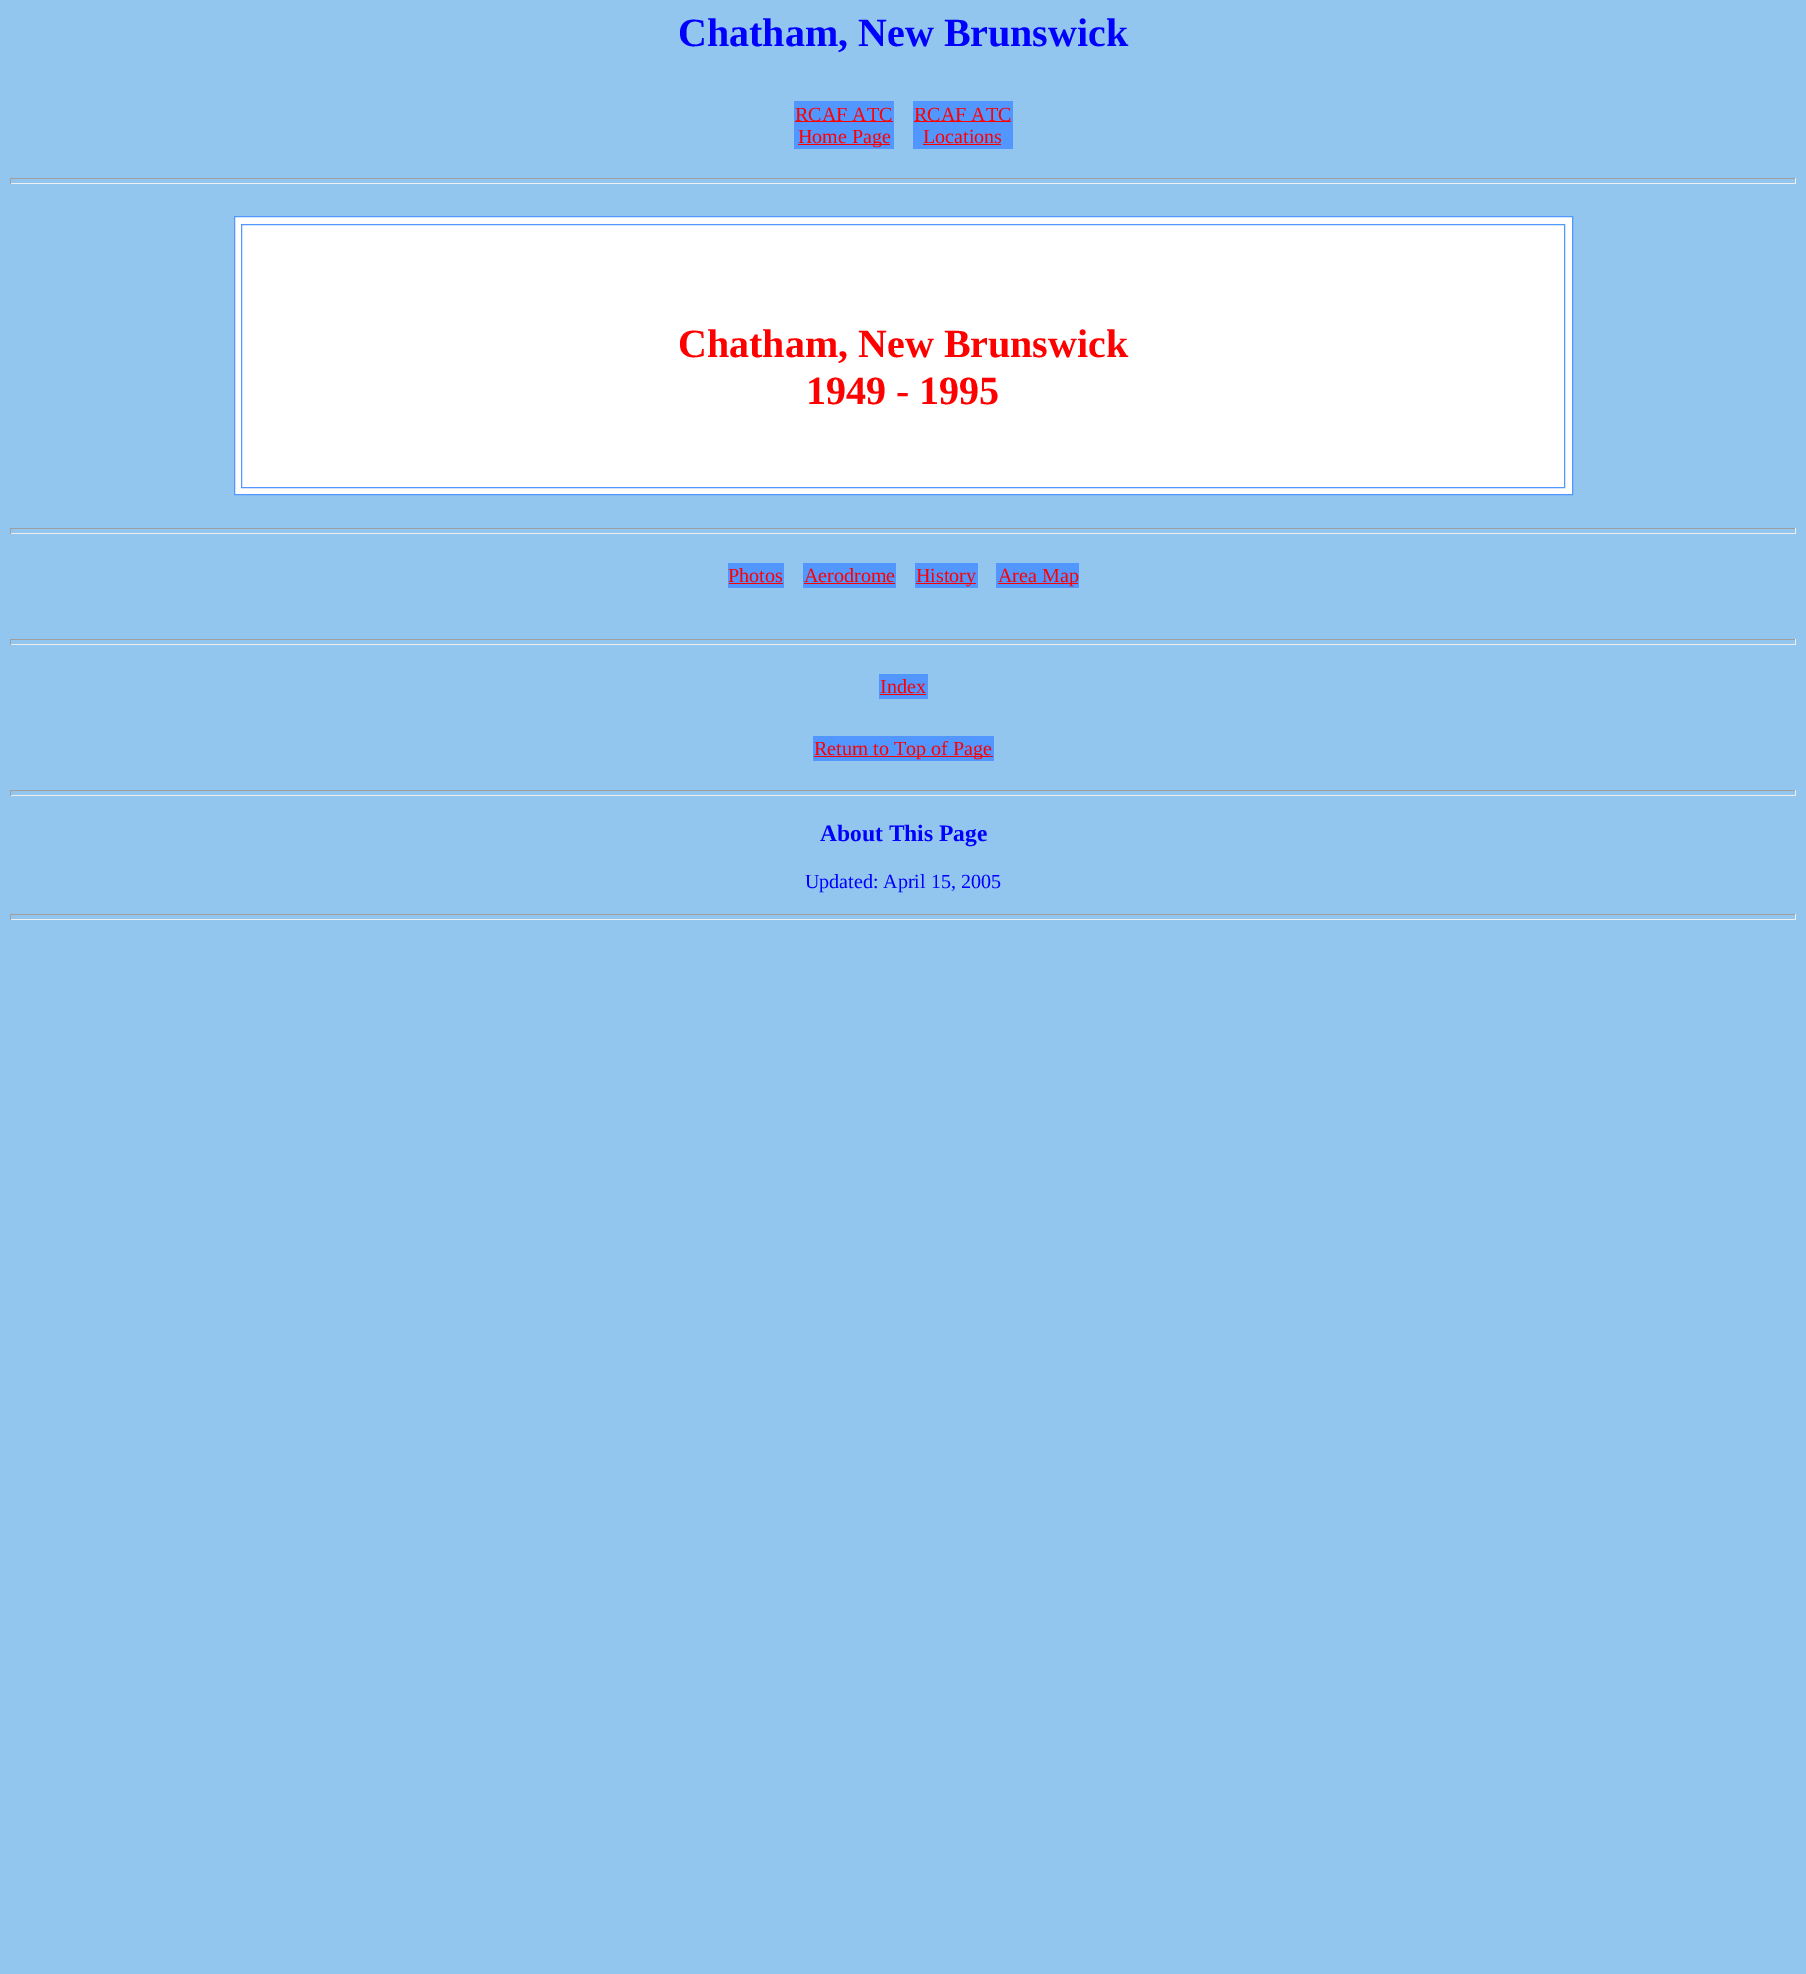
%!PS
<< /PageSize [1806 1974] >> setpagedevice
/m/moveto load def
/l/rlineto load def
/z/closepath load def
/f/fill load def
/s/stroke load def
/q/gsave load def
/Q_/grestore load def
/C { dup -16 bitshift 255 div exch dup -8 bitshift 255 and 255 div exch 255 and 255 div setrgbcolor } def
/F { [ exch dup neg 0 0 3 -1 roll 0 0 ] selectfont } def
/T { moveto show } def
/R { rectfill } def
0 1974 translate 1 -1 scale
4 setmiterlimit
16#92C6EE C
0 0 1806 1974 R
/LiberationSerif-Bold 40 F
16#0000FF C
(Chatham, New Brunswick) 678 46 T
16#5296FF C
794 101 100 48 R
16#FF0000 C
795 121 98 1 R
/LiberationSerif-Regular 20 F
(RCAF ATC) 795 121 T
798 144 92 1 R
(Home Page) 798 143 T
16#5296FF C
913 101 100 48 R
16#FF0000 C
914 121 97 1 R
(RCAF ATC) 914 121 T
(Locations) 923 143 T
923 144 78 1 R
16#9F9F9F C
10 178 1786 1 R
16#EEEEEE C
1795 178 1 6 R
10 183 1786 1 R
16#9F9F9F C
10 178 1 6 R
16#FFFFFF C
234.5 216.5 m 1338 0 l 0 278 l -1338 0 l z q f Q_
16#5296FF C
s
241.5 224.5 1323 263 rectstroke
/LiberationSerif-Bold 40 F
16#FF0000 C
(Chatham, New Brunswick) 678 357 T
(1949 - 1995) 806 404 T
16#9F9F9F C
10 528 1786 1 R
16#EEEEEE C
1795 528 1 6 R
10 533 1786 1 R
16#9F9F9F C
10 528 1 6 R
16#5296FF C
728 563 56 25 R
/LiberationSerif-Regular 20 F
16#FF0000 C
(Photos) 728 582 T
729 583 54 1 R
16#5296FF C
803 563 93 25 R
16#FF0000 C
(Aerodrome) 804 582 T
804 583 91 1 R
16#5296FF C
915 563 63 25 R
16#FF0000 C
916 583 60 1 R
(History) 916 582 T
16#5296FF C
996 563 83 25 R
16#FF0000 C
998 583 80 1 R
(Area Map) 998 582 T
16#9F9F9F C
10 639 1786 1 R
16#EEEEEE C
1795 639 1 6 R
10 644 1786 1 R
16#9F9F9F C
10 639 1 6 R
16#5296FF C
879 674 49 25 R
16#FF0000 C
(Index) 880 693 T
880 694 46 1 R
16#5296FF C
813 736 181 25 R
16#FF0000 C
814 756 179 1 R
(Return to Top of Page) 814 755 T
16#9F9F9F C
10 790 1786 1 R
16#EEEEEE C
1795 790 1 6 R
10 795 1786 1 R
16#9F9F9F C
10 790 1 6 R
/LiberationSerif-Bold 23.5 F
16#0000FF C
(About This Page) 820 841 T
/LiberationSerif-Regular 20 F
(Updated: April 15, 2005) 805 888 T
16#9F9F9F C
10 914 1786 1 R
16#EEEEEE C
1795 914 1 6 R
10 919 1786 1 R
16#9F9F9F C
10 914 1 6 R
showpage
